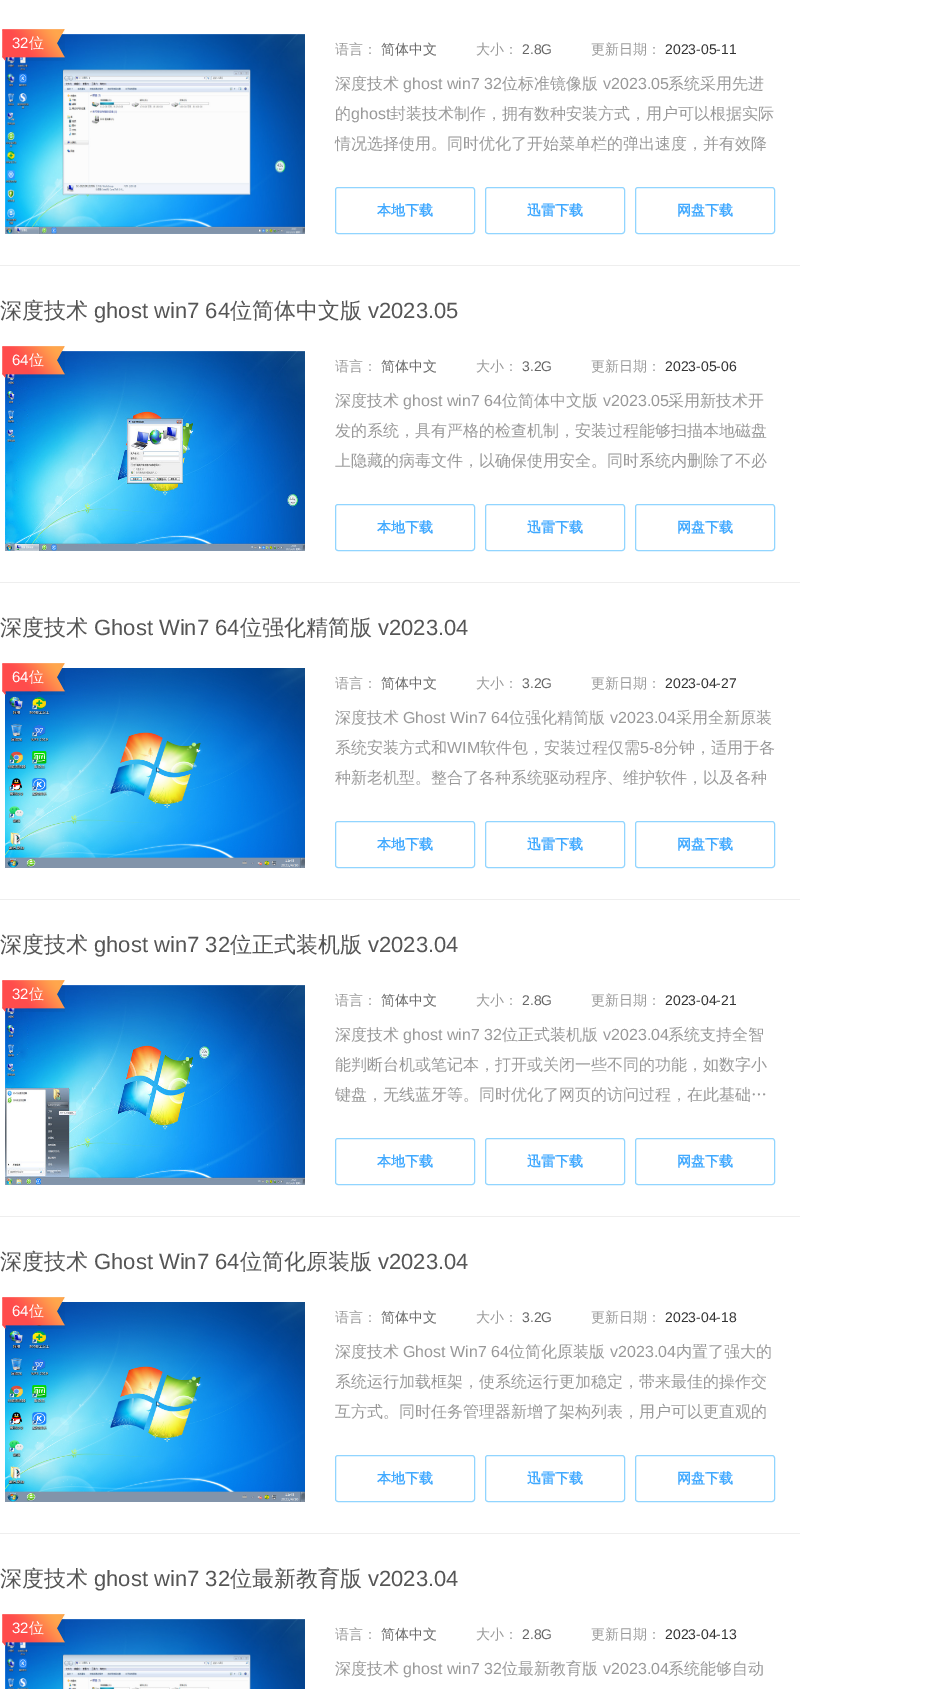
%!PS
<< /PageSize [935 1689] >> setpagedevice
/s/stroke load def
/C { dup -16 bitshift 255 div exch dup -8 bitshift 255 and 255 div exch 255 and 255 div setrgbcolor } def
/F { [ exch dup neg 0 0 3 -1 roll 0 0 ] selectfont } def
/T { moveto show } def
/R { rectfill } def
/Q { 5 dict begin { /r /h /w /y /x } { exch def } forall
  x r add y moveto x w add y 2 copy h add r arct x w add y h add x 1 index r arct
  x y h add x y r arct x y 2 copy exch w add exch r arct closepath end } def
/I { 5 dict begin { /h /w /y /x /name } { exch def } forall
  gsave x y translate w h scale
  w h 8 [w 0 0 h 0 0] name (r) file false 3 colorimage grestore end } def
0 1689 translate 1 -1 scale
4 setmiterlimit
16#FFFFFF C
0 0 935 1689 R
16#EEEEEE C
0 265 800 1 R
(1.rgb) 5 34 300 200 I
(2.rgb) 2 29 63 32 I
/LiberationSans-Regular 15 F
16#FFFFFF C
(32) 12 48 T
/WenQuanYiZenHei-Medium 15 F
(位) 29 48 T
/WenQuanYiZenHei-Medium 14 F
16#999999 C
(语言：) 335 54 T
16#666666 C
(简体中文) 381 54 T
16#999999 C
(大小：) 476 54 T
/LiberationSans-Regular 14 F
16#666666 C
(2.8G) 522 54 T
/WenQuanYiZenHei-Medium 14 F
16#999999 C
(更新日期：) 591 54 T
/LiberationSans-Regular 14 F
16#333333 C
(2023-05-11) 665 54 T
/WenQuanYiZenHei-Medium 16 F
16#999999 C
(深度技术) 335 89 T
/LiberationSans-Regular 16 F
(ghost win7 32) 403 89 T
/WenQuanYiZenHei-Medium 16 F
(位标准镜像版) 502 89 T
/LiberationSans-Regular 16 F
(v2023.05) 603 89 T
/WenQuanYiZenHei-Medium 16 F
(系统采用先进) 668 89 T
(的) 335 119 T
/LiberationSans-Regular 16 F
(ghost) 351 119 T
/WenQuanYiZenHei-Medium 16 F
(封装技术制作，拥有数种安装方式，用户可以根据实际) 390 119 T
(情况选择使用。同时优化了开始菜单栏的弹出速度，并有效降) 335 149 T
16#91D5FF C
335.5 187.5 139 46 2.5 Q s
/WenQuanYiZenHei-Bold 14 F
16#40A9FF C
(本地下载) 377 215 T
16#91D5FF C
485.5 187.5 139 46 2.5 Q s
16#40A9FF C
(迅雷下载) 527 215 T
16#91D5FF C
635.5 187.5 139 46 2.5 Q s
16#40A9FF C
(网盘下载) 677 215 T
16#EEEEEE C
0 582 800 1 R
/WenQuanYiZenHei-Medium 22 F
16#555555 C
(深度技术) 0 318 T
/LiberationSans-Regular 22 F
(ghost win7 64) 94 318 T
/WenQuanYiZenHei-Medium 22 F
(位简体中文版) 230 318 T
/LiberationSans-Regular 22 F
(v2023.05) 368 318 T
(3.rgb) 5 351 300 200 I
(4.rgb) 2 346 63 32 I
/LiberationSans-Regular 15 F
16#FFFFFF C
(64) 12 365 T
/WenQuanYiZenHei-Medium 15 F
(位) 29 365 T
/WenQuanYiZenHei-Medium 14 F
16#999999 C
(语言：) 335 371 T
16#666666 C
(简体中文) 381 371 T
16#999999 C
(大小：) 476 371 T
/LiberationSans-Regular 14 F
16#666666 C
(3.2G) 522 371 T
/WenQuanYiZenHei-Medium 14 F
16#999999 C
(更新日期：) 591 371 T
/LiberationSans-Regular 14 F
16#333333 C
(2023-05-06) 665 371 T
/WenQuanYiZenHei-Medium 16 F
16#999999 C
(深度技术) 335 406 T
/LiberationSans-Regular 16 F
(ghost win7 64) 403 406 T
/WenQuanYiZenHei-Medium 16 F
(位简体中文版) 502 406 T
/LiberationSans-Regular 16 F
(v2023.05) 603 406 T
/WenQuanYiZenHei-Medium 16 F
(采用新技术开) 668 406 T
(发的系统，具有严格的检查机制，安装过程能够扫描本地磁盘) 335 436 T
(上隐藏的病毒文件，以确保使用安全。同时系统内删除了不必) 335 466 T
16#91D5FF C
335.5 504.5 139 46 2.5 Q s
/WenQuanYiZenHei-Bold 14 F
16#40A9FF C
(本地下载) 377 532 T
16#91D5FF C
485.5 504.5 139 46 2.5 Q s
16#40A9FF C
(迅雷下载) 527 532 T
16#91D5FF C
635.5 504.5 139 46 2.5 Q s
16#40A9FF C
(网盘下载) 677 532 T
16#EEEEEE C
0 899 800 1 R
/WenQuanYiZenHei-Medium 22 F
16#555555 C
(深度技术) 0 635 T
/LiberationSans-Regular 22 F
(Ghost Win7 64) 94 635 T
/WenQuanYiZenHei-Medium 22 F
(位强化精简版) 240 635 T
/LiberationSans-Regular 22 F
(v2023.04) 378 635 T
(5.rgb) 5 668 300 200 I
(6.rgb) 2 663 63 32 I
/LiberationSans-Regular 15 F
16#FFFFFF C
(64) 12 682 T
/WenQuanYiZenHei-Medium 15 F
(位) 29 682 T
/WenQuanYiZenHei-Medium 14 F
16#999999 C
(语言：) 335 688 T
16#666666 C
(简体中文) 381 688 T
16#999999 C
(大小：) 476 688 T
/LiberationSans-Regular 14 F
16#666666 C
(3.2G) 522 688 T
/WenQuanYiZenHei-Medium 14 F
16#999999 C
(更新日期：) 591 688 T
/LiberationSans-Regular 14 F
16#333333 C
(2023-04-27) 665 688 T
/WenQuanYiZenHei-Medium 16 F
16#999999 C
(深度技术) 335 723 T
/LiberationSans-Regular 16 F
(Ghost Win7 64) 403 723 T
/WenQuanYiZenHei-Medium 16 F
(位强化精简版) 509 723 T
/LiberationSans-Regular 16 F
(v2023.04) 610 723 T
/WenQuanYiZenHei-Medium 16 F
(采用全新原装) 676 723 T
(系统安装方式和) 335 753 T
/LiberationSans-Regular 16 F
(WIM) 447 753 T
/WenQuanYiZenHei-Medium 16 F
(软件包，安装过程仅需) 480 753 T
/LiberationSans-Regular 16 F
(5-8) 640 753 T
/WenQuanYiZenHei-Medium 16 F
(分钟，适用于各) 663 753 T
(种新老机型。整合了各种系统驱动程序、维护软件，以及各种) 335 783 T
16#91D5FF C
335.5 821.5 139 46 2.5 Q s
/WenQuanYiZenHei-Bold 14 F
16#40A9FF C
(本地下载) 377 849 T
16#91D5FF C
485.5 821.5 139 46 2.5 Q s
16#40A9FF C
(迅雷下载) 527 849 T
16#91D5FF C
635.5 821.5 139 46 2.5 Q s
16#40A9FF C
(网盘下载) 677 849 T
16#EEEEEE C
0 1216 800 1 R
/WenQuanYiZenHei-Medium 22 F
16#555555 C
(深度技术) 0 952 T
/LiberationSans-Regular 22 F
(ghost win7 32) 94 952 T
/WenQuanYiZenHei-Medium 22 F
(位正式装机版) 230 952 T
/LiberationSans-Regular 22 F
(v2023.04) 368 952 T
(7.rgb) 5 985 300 200 I
(8.rgb) 2 980 63 32 I
/LiberationSans-Regular 15 F
16#FFFFFF C
(32) 12 999 T
/WenQuanYiZenHei-Medium 15 F
(位) 29 999 T
/WenQuanYiZenHei-Medium 14 F
16#999999 C
(语言：) 335 1005 T
16#666666 C
(简体中文) 381 1005 T
16#999999 C
(大小：) 476 1005 T
/LiberationSans-Regular 14 F
16#666666 C
(2.8G) 522 1005 T
/WenQuanYiZenHei-Medium 14 F
16#999999 C
(更新日期：) 591 1005 T
/LiberationSans-Regular 14 F
16#333333 C
(2023-04-21) 665 1005 T
/WenQuanYiZenHei-Medium 16 F
16#999999 C
(深度技术) 335 1040 T
/LiberationSans-Regular 16 F
(ghost win7 32) 403 1040 T
/WenQuanYiZenHei-Medium 16 F
(位正式装机版) 502 1040 T
/LiberationSans-Regular 16 F
(v2023.04) 603 1040 T
/WenQuanYiZenHei-Medium 16 F
(系统支持全智) 668 1040 T
(能判断台机或笔记本，打开或关闭一些不同的功能，如数字小) 335 1070 T
(键盘，无线蓝牙等。同时优化了网页的访问过程，在此基础…) 335 1100 T
16#91D5FF C
335.5 1138.5 139 46 2.5 Q s
/WenQuanYiZenHei-Bold 14 F
16#40A9FF C
(本地下载) 377 1166 T
16#91D5FF C
485.5 1138.5 139 46 2.5 Q s
16#40A9FF C
(迅雷下载) 527 1166 T
16#91D5FF C
635.5 1138.5 139 46 2.5 Q s
16#40A9FF C
(网盘下载) 677 1166 T
16#EEEEEE C
0 1533 800 1 R
/WenQuanYiZenHei-Medium 22 F
16#555555 C
(深度技术) 0 1269 T
/LiberationSans-Regular 22 F
(Ghost Win7 64) 94 1269 T
/WenQuanYiZenHei-Medium 22 F
(位简化原装版) 240 1269 T
/LiberationSans-Regular 22 F
(v2023.04) 378 1269 T
(5.rgb) 5 1302 300 200 I
(6.rgb) 2 1297 63 32 I
/LiberationSans-Regular 15 F
16#FFFFFF C
(64) 12 1316 T
/WenQuanYiZenHei-Medium 15 F
(位) 29 1316 T
/WenQuanYiZenHei-Medium 14 F
16#999999 C
(语言：) 335 1322 T
16#666666 C
(简体中文) 381 1322 T
16#999999 C
(大小：) 476 1322 T
/LiberationSans-Regular 14 F
16#666666 C
(3.2G) 522 1322 T
/WenQuanYiZenHei-Medium 14 F
16#999999 C
(更新日期：) 591 1322 T
/LiberationSans-Regular 14 F
16#333333 C
(2023-04-18) 665 1322 T
/WenQuanYiZenHei-Medium 16 F
16#999999 C
(深度技术) 335 1357 T
/LiberationSans-Regular 16 F
(Ghost Win7 64) 403 1357 T
/WenQuanYiZenHei-Medium 16 F
(位简化原装版) 509 1357 T
/LiberationSans-Regular 16 F
(v2023.04) 610 1357 T
/WenQuanYiZenHei-Medium 16 F
(内置了强大的) 676 1357 T
(系统运行加载框架，使系统运行更加稳定，带来最佳的操作交) 335 1387 T
(互方式。同时任务管理器新增了架构列表，用户可以更直观的) 335 1417 T
16#91D5FF C
335.5 1455.5 139 46 2.5 Q s
/WenQuanYiZenHei-Bold 14 F
16#40A9FF C
(本地下载) 377 1483 T
16#91D5FF C
485.5 1455.5 139 46 2.5 Q s
16#40A9FF C
(迅雷下载) 527 1483 T
16#91D5FF C
635.5 1455.5 139 46 2.5 Q s
16#40A9FF C
(网盘下载) 677 1483 T
/WenQuanYiZenHei-Medium 22 F
16#555555 C
(深度技术) 0 1586 T
/LiberationSans-Regular 22 F
(ghost win7 32) 94 1586 T
/WenQuanYiZenHei-Medium 22 F
(位最新教育版) 230 1586 T
/LiberationSans-Regular 22 F
(v2023.04) 368 1586 T
(9.rgb) 5 1619 300 70 I
(2.rgb) 2 1614 63 32 I
/LiberationSans-Regular 15 F
16#FFFFFF C
(32) 12 1633 T
/WenQuanYiZenHei-Medium 15 F
(位) 29 1633 T
/WenQuanYiZenHei-Medium 14 F
16#999999 C
(语言：) 335 1639 T
16#666666 C
(简体中文) 381 1639 T
16#999999 C
(大小：) 476 1639 T
/LiberationSans-Regular 14 F
16#666666 C
(2.8G) 522 1639 T
/WenQuanYiZenHei-Medium 14 F
16#999999 C
(更新日期：) 591 1639 T
/LiberationSans-Regular 14 F
16#333333 C
(2023-04-13) 665 1639 T
/WenQuanYiZenHei-Medium 16 F
16#999999 C
(深度技术) 335 1674 T
/LiberationSans-Regular 16 F
(ghost win7 32) 403 1674 T
/WenQuanYiZenHei-Medium 16 F
(位最新教育版) 502 1674 T
/LiberationSans-Regular 16 F
(v2023.04) 603 1674 T
/WenQuanYiZenHei-Medium 16 F
(系统能够自动) 668 1674 T
showpage
